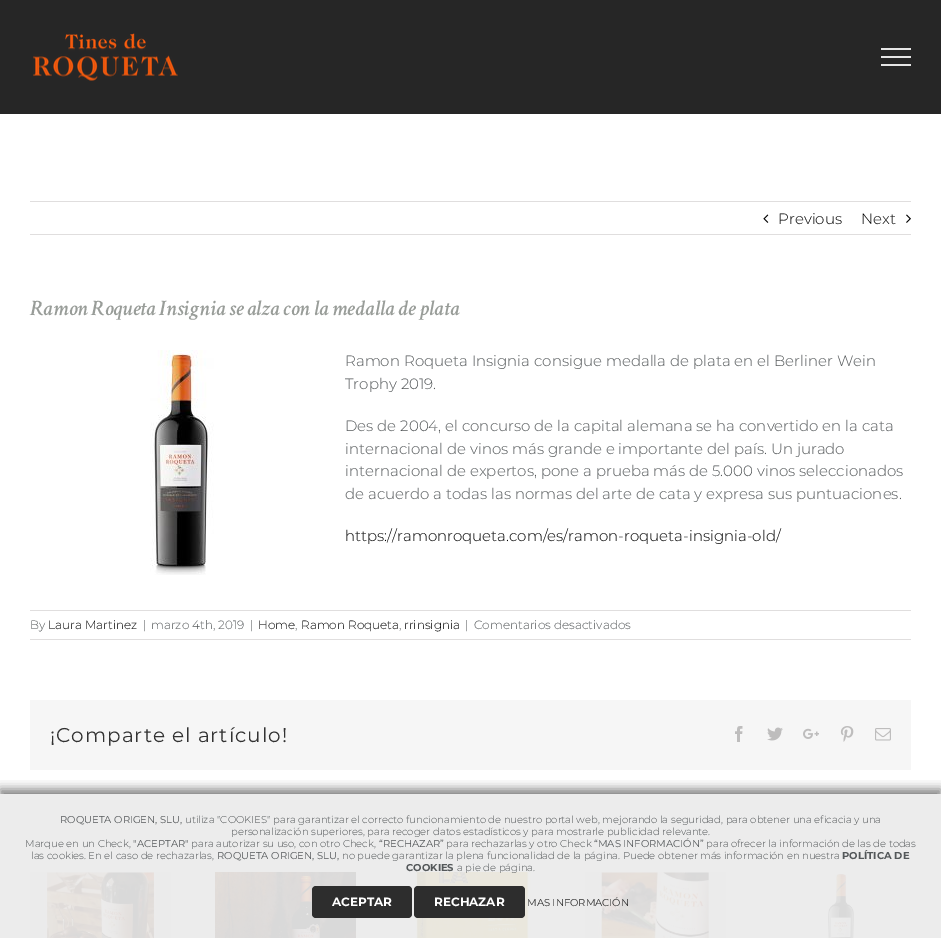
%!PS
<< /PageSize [941 938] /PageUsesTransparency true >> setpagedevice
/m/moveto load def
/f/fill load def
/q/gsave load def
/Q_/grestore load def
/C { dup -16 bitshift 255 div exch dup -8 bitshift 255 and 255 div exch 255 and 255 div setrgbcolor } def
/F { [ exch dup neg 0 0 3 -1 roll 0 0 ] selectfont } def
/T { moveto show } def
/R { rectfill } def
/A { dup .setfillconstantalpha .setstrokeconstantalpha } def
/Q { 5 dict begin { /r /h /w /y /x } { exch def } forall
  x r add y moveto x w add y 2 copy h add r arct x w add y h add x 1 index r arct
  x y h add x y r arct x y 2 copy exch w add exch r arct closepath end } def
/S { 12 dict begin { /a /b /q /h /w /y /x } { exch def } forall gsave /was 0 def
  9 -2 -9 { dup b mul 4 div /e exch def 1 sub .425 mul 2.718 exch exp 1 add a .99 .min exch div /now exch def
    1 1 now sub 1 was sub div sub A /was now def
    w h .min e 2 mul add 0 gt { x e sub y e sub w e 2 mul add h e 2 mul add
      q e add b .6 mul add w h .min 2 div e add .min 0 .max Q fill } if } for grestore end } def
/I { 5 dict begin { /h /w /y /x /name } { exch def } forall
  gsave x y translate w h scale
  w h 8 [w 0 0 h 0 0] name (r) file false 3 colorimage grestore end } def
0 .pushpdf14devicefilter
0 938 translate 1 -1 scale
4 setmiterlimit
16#FFFFFF C
0 0 941 938 R
16#ECECEC C
0 794 941 144 R
16#262626 C
0 0 941 114 R
(1.rgb) 33 33 145 48 I
16#E5E5E5 C
881 48 30 2 R
881 56 30 2 R
881 64 30 2 R
16#E0DEDE C
30 201 881 1 R
30 234 881 1 R
(2.rgb) 763 214 6 9 I
/Montserrat-Thin 15 F
16#000000 C
(Previous) 778 224 T
(Next) 861 224 T
(3.rgb) 906 214 5 9 I
/CrimsonText-SemiBoldItalic 22 F
16#999D99 C
(Ramon Roqueta Insignia se alza con la medalla de plata) 30 315 T
(4.rgb) 150 350 64 225 I
/Montserrat-Thin 15 F
16#54585A C
(Ramon Roqueta Insignia consigue medalla de plata en el Berliner Wein) 345 366 T
(Trophy 2019.) 345 389 T
(Des de 2004, el concurso de la capital alemana se ha convertido en la cata) 345 431 T
(internacional de vinos más grande e importante del país. Un jurado) 345 454 T
(internacional de expertos, pone a prueba más de 5.000 vinos seleccionados) 345 476 T
(de acuerdo a todas las normas del arte de cata y expresa sus puntuaciones.) 345 499 T
16#000000 C
(https://ramonroqueta.com/es/ramon-roqueta-insignia-old/) 345 541 T
16#E0DEDE C
30 610 881 1 R
30 639 881 1 R
/Montserrat-Thin 12 F
16#54585A C
(By) 30 629 T
16#000000 C
(Laura Martinez) 48 629 T
16#54585A C
(|) 143 629 T
(marzo 4th, 2019) 151 629 T
(|) 250 629 T
16#000000 C
(Home) 258 629 T
16#54585A C
(,) 295 629 T
16#000000 C
(Ramon Roqueta) 301 629 T
16#54585A C
(,) 399 629 T
16#000000 C
(rrinsignia) 404 629 T
16#54585A C
(|) 465 629 T
(Comentarios desactivados) 474 629 T
16#F6F6F6 C
30 700 881 70 R
/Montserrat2-Thin 20 F
16#333333 C
50 742 m 1 0 (¡Comparte el artículo!) ashow
(5.rgb) 735 726 8 16 I
(6.rgb) 767 727 16 14 I
(7.rgb) 803 728 16 11 I
(8.rgb) 840 726 14 16 I
(9.rgb) 875 728 16 13 I
(10.rgb) 30 872 141 66 I
(11.rgb) 215 872 141 66 I
(12.rgb) 414 872 117 66 I
(13.rgb) 585 872 141 66 I
(14.rgb) 828 872 26 66 I
q
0 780 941 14 rectclip
16#000000 C
0 789 941 144 0 5 .5 S
Q_
/Montserrat2-Thin 10 F
16#54585A C
(ROQUETA ORIGEN, SLU,) 60 823 T
/Montserrat-Thin 10 F
(utiliza "COOKIES" para garantizar el correcto funcionamiento de nuestro portal web, mejorando la seguridad, para obtener una eficacia y una) 185 823 T
(personalización superiores, para recoger datos estadísticos y para mostrarle publicidad relevante.) 231 835 T
(Marque en un Check,) 25 847 T
/Montserrat2-Thin 10 F
("ACEPTAR") 133 847 T
/Montserrat-Thin 10 F
(para autorizar su uso, con otro Check,) 191 847 T
/Montserrat2-Thin 10 F
(“RECHAZAR”) 379 847 T
/Montserrat-Thin 10 F
(para rechazarlas y otro Check) 446 847 T
/Montserrat2-Thin 10 F
(“MAS INFORMACIÓN”) 594 847 T
/Montserrat-Thin 10 F
(para ofrecer la información de las de todas) 706 847 T
(las cookies. En el caso de rechazarlas,) 31 859 T
/Montserrat2-Thin 10 F
(ROQUETA ORIGEN, SLU,) 217 859 T
/Montserrat-Thin 10 F
(no puede garantizar la plena funcionalidad de la página. Puede obtener más información en nuestra) 342 859 T
/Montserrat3-Thin 10 F
(POLÍTICA DE) 842 859 T
(COOKIES) 406 871 T
/Montserrat-Thin 10 F
(a pie de página.) 457 871 T
16#2D2D2D C
312 886 100 32 4 Q f
/Montserrat3-Thin 12 F
16#FFFFFF C
(ACEPTAR) 332 906 T
16#2D2D2D C
414 886 111 32 4 Q f
16#FFFFFF C
(RECHAZAR) 434 906 T
/Montserrat2-Thin 10 F
16#2D2D2D C
(MAS INFORMACIÓN) 527 906 T
.poppdf14devicefilter showpage
